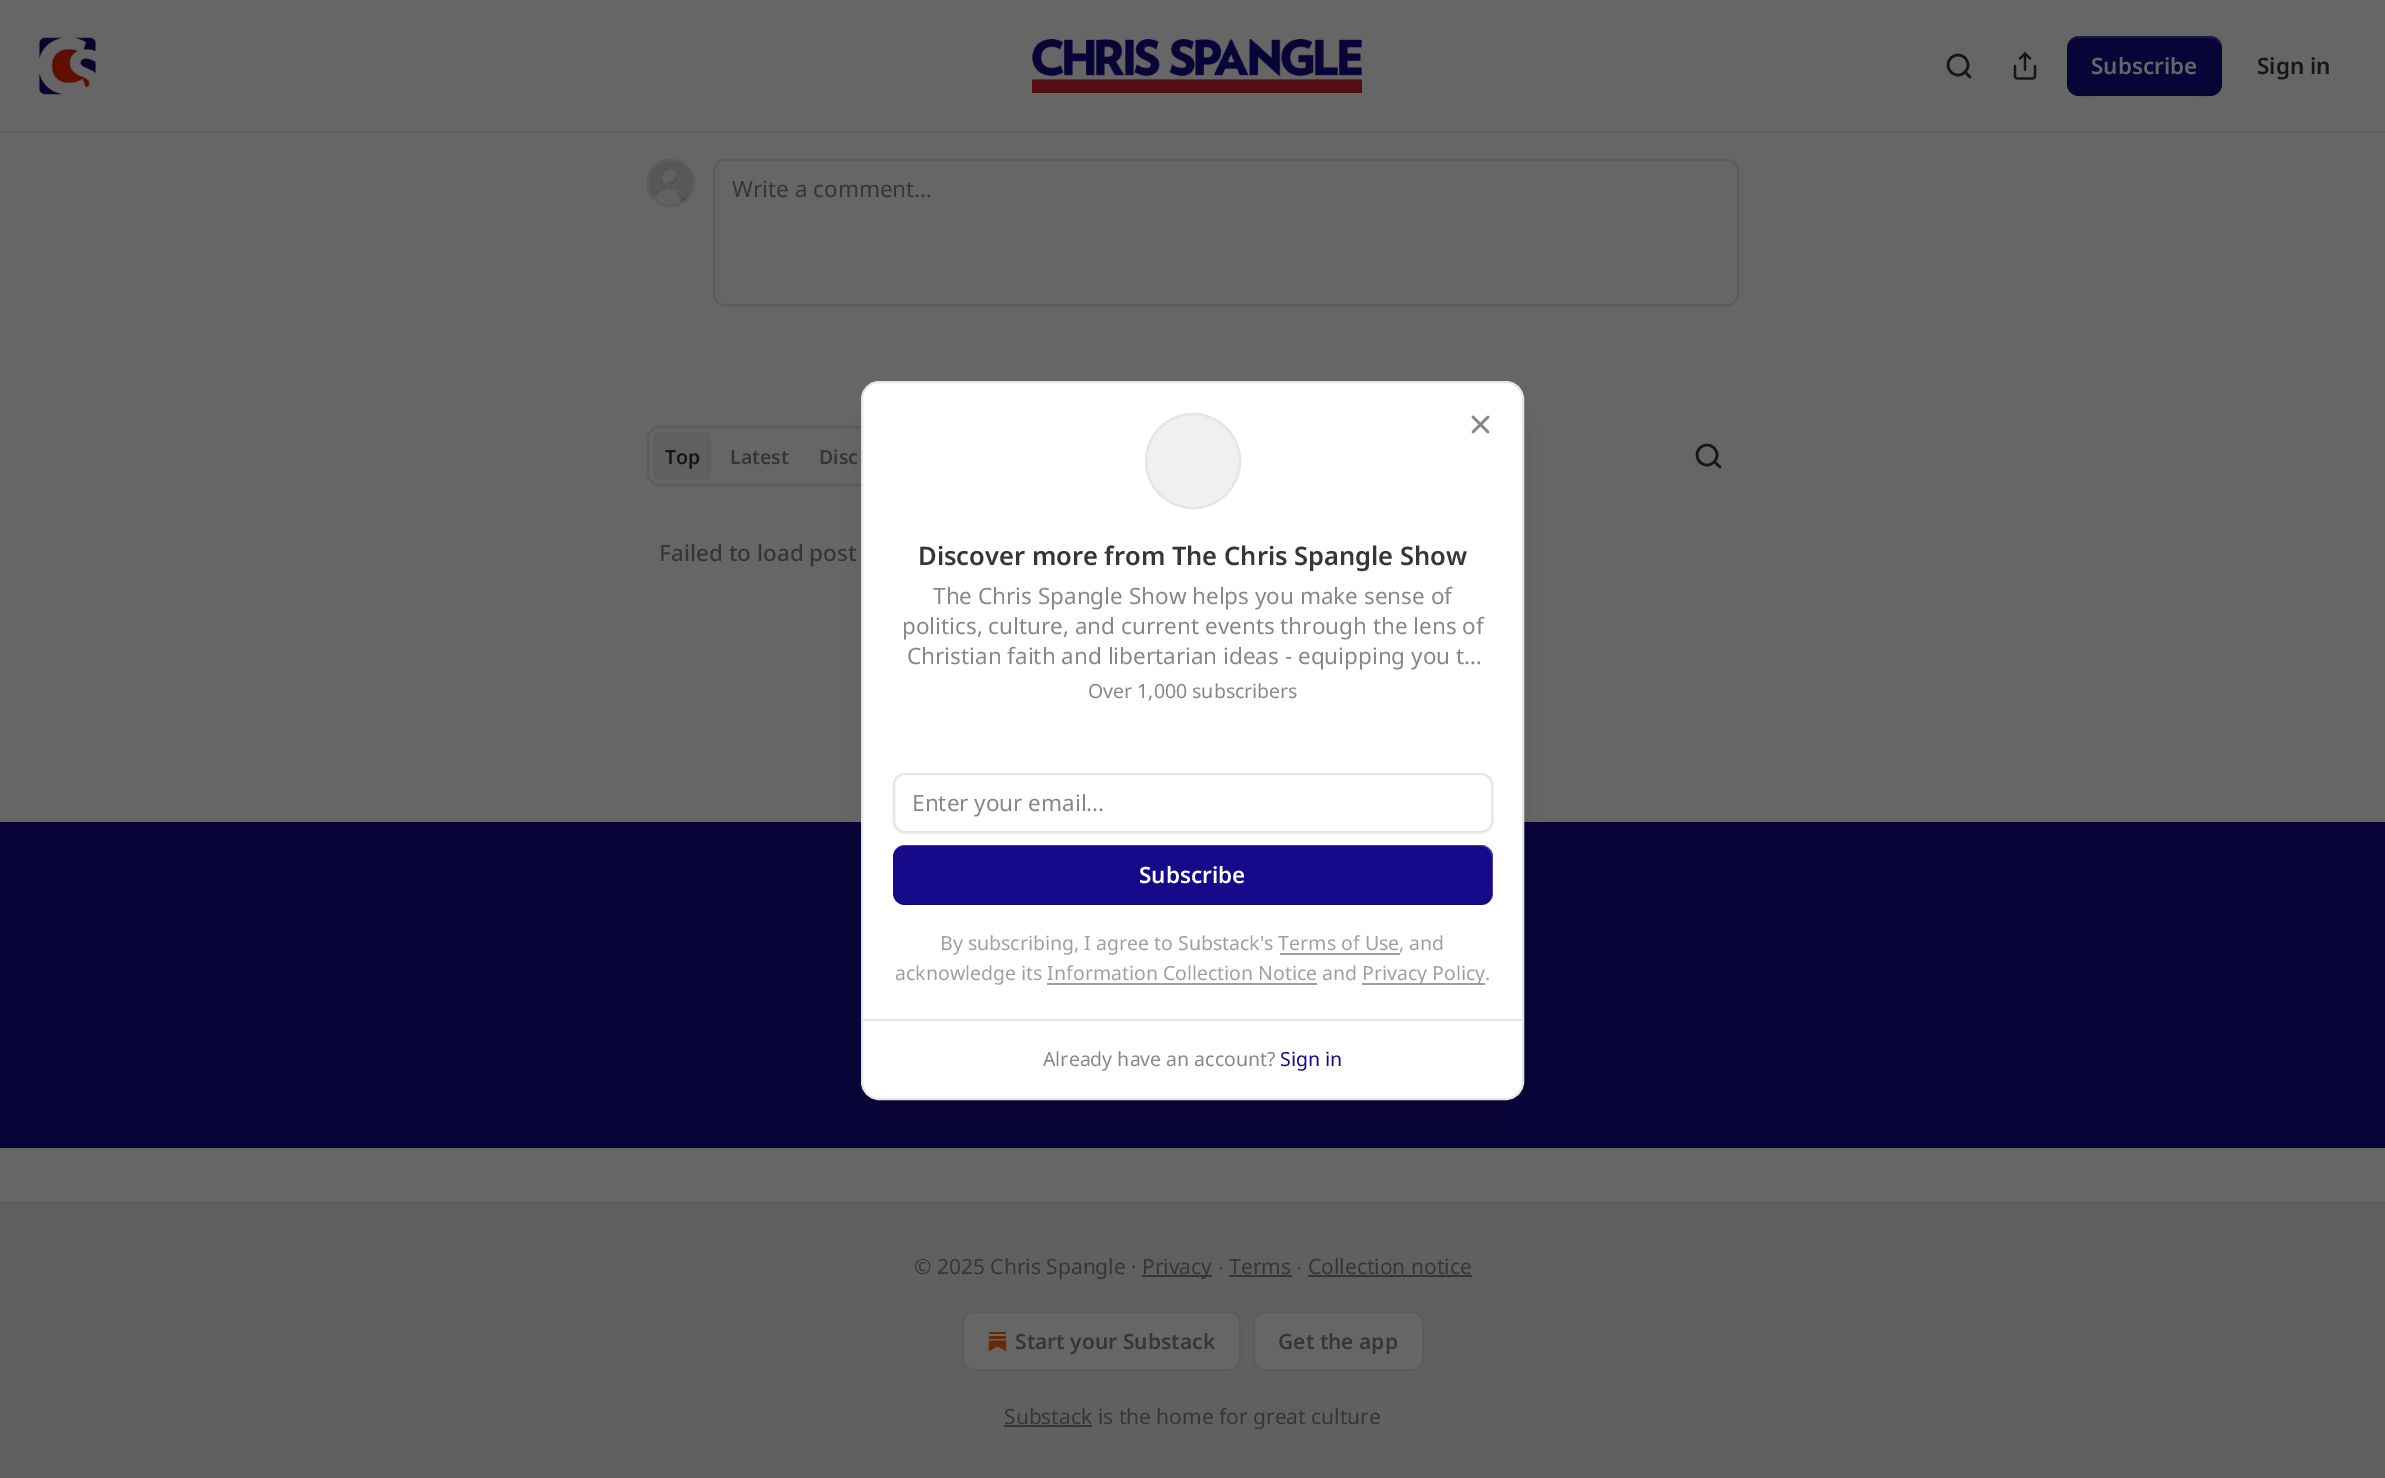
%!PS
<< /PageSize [2385 1478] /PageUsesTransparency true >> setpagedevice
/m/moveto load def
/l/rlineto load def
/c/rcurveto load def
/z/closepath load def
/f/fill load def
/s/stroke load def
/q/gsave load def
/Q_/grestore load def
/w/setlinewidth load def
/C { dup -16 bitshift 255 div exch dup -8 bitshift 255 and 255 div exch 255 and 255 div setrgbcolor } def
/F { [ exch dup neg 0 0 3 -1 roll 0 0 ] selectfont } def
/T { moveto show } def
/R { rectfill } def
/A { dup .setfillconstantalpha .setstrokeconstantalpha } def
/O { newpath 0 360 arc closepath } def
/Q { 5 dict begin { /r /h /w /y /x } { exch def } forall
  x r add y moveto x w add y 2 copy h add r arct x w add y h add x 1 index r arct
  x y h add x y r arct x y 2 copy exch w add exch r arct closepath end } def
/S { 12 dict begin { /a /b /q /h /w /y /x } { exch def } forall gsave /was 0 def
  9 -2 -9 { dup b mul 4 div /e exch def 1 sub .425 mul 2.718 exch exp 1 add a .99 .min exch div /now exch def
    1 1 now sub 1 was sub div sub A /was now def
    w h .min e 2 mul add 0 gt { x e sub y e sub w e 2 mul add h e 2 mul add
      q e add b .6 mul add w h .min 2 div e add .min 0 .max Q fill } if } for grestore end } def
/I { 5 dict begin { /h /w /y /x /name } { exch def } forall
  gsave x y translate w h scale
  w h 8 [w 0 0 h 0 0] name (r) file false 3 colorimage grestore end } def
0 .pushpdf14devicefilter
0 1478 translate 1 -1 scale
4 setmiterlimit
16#666666 C
0 0 2385 1478 R
16#5C5C5C C
0 131 2385 2 R
(1.rgb) 38 36 59 60 I
(2.rgb) 1032 39 330 54 I
16#161616 C
2.5 w
1958 65 10 O s
1 setlinecap
1 setlinejoin
1970 77 m -5 -5 l s
(3.rgb) 2013 52 24 28 I
16#090438 C
2067 36 155 60 12 Q f
0.1 A
16#000000 C
2067 82 m 0 19 20 14 34 14 c 87 0 l 14 0 34 5 34 -14 c 0 7 -6 12 -12 12 c -131 0 l -7 0 -12 -5 -12 -12 c z f
0.2 A
16#666666 C
2079 38 m 131 0 l 6 0 12 5 12 12 c 0 -19 -20 -14 -34 -14 c -87 0 l -14 0 -34 -5 -34 14 c 0 -7 5 -12 12 -12 c z f
/NotoSans-SemiBold 22.5 F
1 A
(Subscribe) 2091 74 T
16#161616 C
(Sign in) 2257 74 T
16#5C5C5C C
2 w
0 setlinecap
0 setlinejoin
671 183 23 O s
(4.rgb) 647 159 47 48 I
671 183 23 O s
714 160 1024 145 11 Q s
/NotoSans-Regular 22.5 F
16#363636 C
(Write a comment...) 732 197 T
16#5C5C5C C
648 427 299 58 11 Q s
16#606060 C
653 432 58 48 6 Q f
/NotoSans-SemiBold 19.5 F
16#363636 C
(Disc) 819 464 T
16#161616 C
(Top) 665 464 T
16#363636 C
(Latest) 730 464 T
16#161616 C
2.5 w
1707 455 10 O s
1 setlinecap
1 setlinejoin
1720 467 m -5.5 -5 l s
/NotoSans-Medium 22.5 F
16#363636 C
(Failed to load post) 659 561 T
16#090438 C
0 822 2385 326 R
16#000000 C
869 419 648 703 11 19 .1 S
16#FFFFFF C
862 382 661 717 17 Q q f Q_
16#E6E6E6 C
2 w
0 setlinecap
0 setlinejoin
s
1193 461 47 O s
16#F0F0F0 C
1193 461 47 O q f Q_
16#E6E6E6 C
s
16#868787 C
2.5 w
1 setlinecap
1 setlinejoin
1488 417 m -15 15 l 1473 417 m 15 15 l s
/NotoSans-SemiBold 25.5 F
16#363636 C
(Discover more from The Chris Spangle Show) 918 565 T
/NotoSans-Regular 22.5 F
16#868787 C
(The Chris Spangle Show helps you make sense of) 933 604 T
(politics, culture, and current events through the lens of) 902 634 T
(Christian faith and libertarian ideas - equipping you t…) 907 664 T
/NotoSans-Regular 19.5 F
(Over 1,000 subscribers) 1088 698 T
16#000000 C
893 774 600 60 12 1.5 .05 S
16#FFFFFF C
894 774 598 58 11 Q q f Q_
16#E6E6E6 C
2 w
0 setlinecap
0 setlinejoin
s
/NotoSans-Regular 22.5 F
16#868787 C
(Enter your email...) 912 811 T
16#160A8B C
893 845 600 60 12 Q f
0.1 A
16#000000 C
894 897 m 1 5 6 8 11 8 c 576 0 l 7 0 12 -5 12 -12 c 0 -36 l 0 -2 -1 -4 -2 -6 c 1 4 l 0 36 l 0 7 -5 12 -12 12 c -576 0 l -4 0 -8 -2 -10 -6 c z f
0.2 A
16#FFFFFF C
904 846 m 576 0 l 7 0 12 5 12 12 c 0 36 l 0 3 -1 5 -2 7 c 2 -2 3 -5 3 -8 c 0 -36 l 0 -7 -5 -12 -12 -12 c -576 0 l -4 0 -7 2 -9 4 c 2 -2 5 -3 8 -3 c z f
/NotoSans-SemiBold 22.5 F
1 A
(Subscribe) 1139 883 T
/NotoSans-Regular 19.5 F
16#9E9F9F C
(By subscribing, I agree to Substack's Terms of Use, and) 940 950 T
1280 953 120 2 R
(acknowledge its Information Collection Notice and) 895 980 T
1362 983 123 2 R
(Privacy Policy.) 1362 980 T
1047 983 270 2 R
16#E6E6E6 C
863 1019 660 2 R
16#868787 C
(Already have an account?) 1043 1066 T
16#160A8B C
(Sign in) 1280 1066 T
16#606060 C
0 1204 2385 274 R
16#5C5C5C C
0 1202 2385 2 R
/NotoSans-Regular 21 F
16#363636 C
(© 2025 Chris Spangle ·) 914 1274 T
1142 1275 70 2 R
(Privacy) 1142 1274 T
/LiberationSans-Regular 21 F
(∙) 1218 1274 T
/NotoSans-Regular 21 F
(Terms) 1229 1274 T
1229 1275 63 2 R
/LiberationSans-Regular 21 F
(∙) 1296 1274 T
/NotoSans-Regular 21 F
(Collection notice) 1308 1274 T
1308 1275 164 2 R
16#666666 C
963 1312 277 58 11 Q q f Q_
16#5C5C5C C
s
(5.rgb) 988 1332 19 20 I
/NotoSans-SemiBold 21 F
16#363636 C
(Start your Substack) 1015 1349 T
16#666666 C
1254 1312 169 58 11 Q q f Q_
16#5C5C5C C
s
16#363636 C
(Get the app) 1278 1349 T
1004 1425 88 2 R
/NotoSans-Regular 21 F
(Substack is the home for great culture) 1004 1424 T
.poppdf14devicefilter showpage
